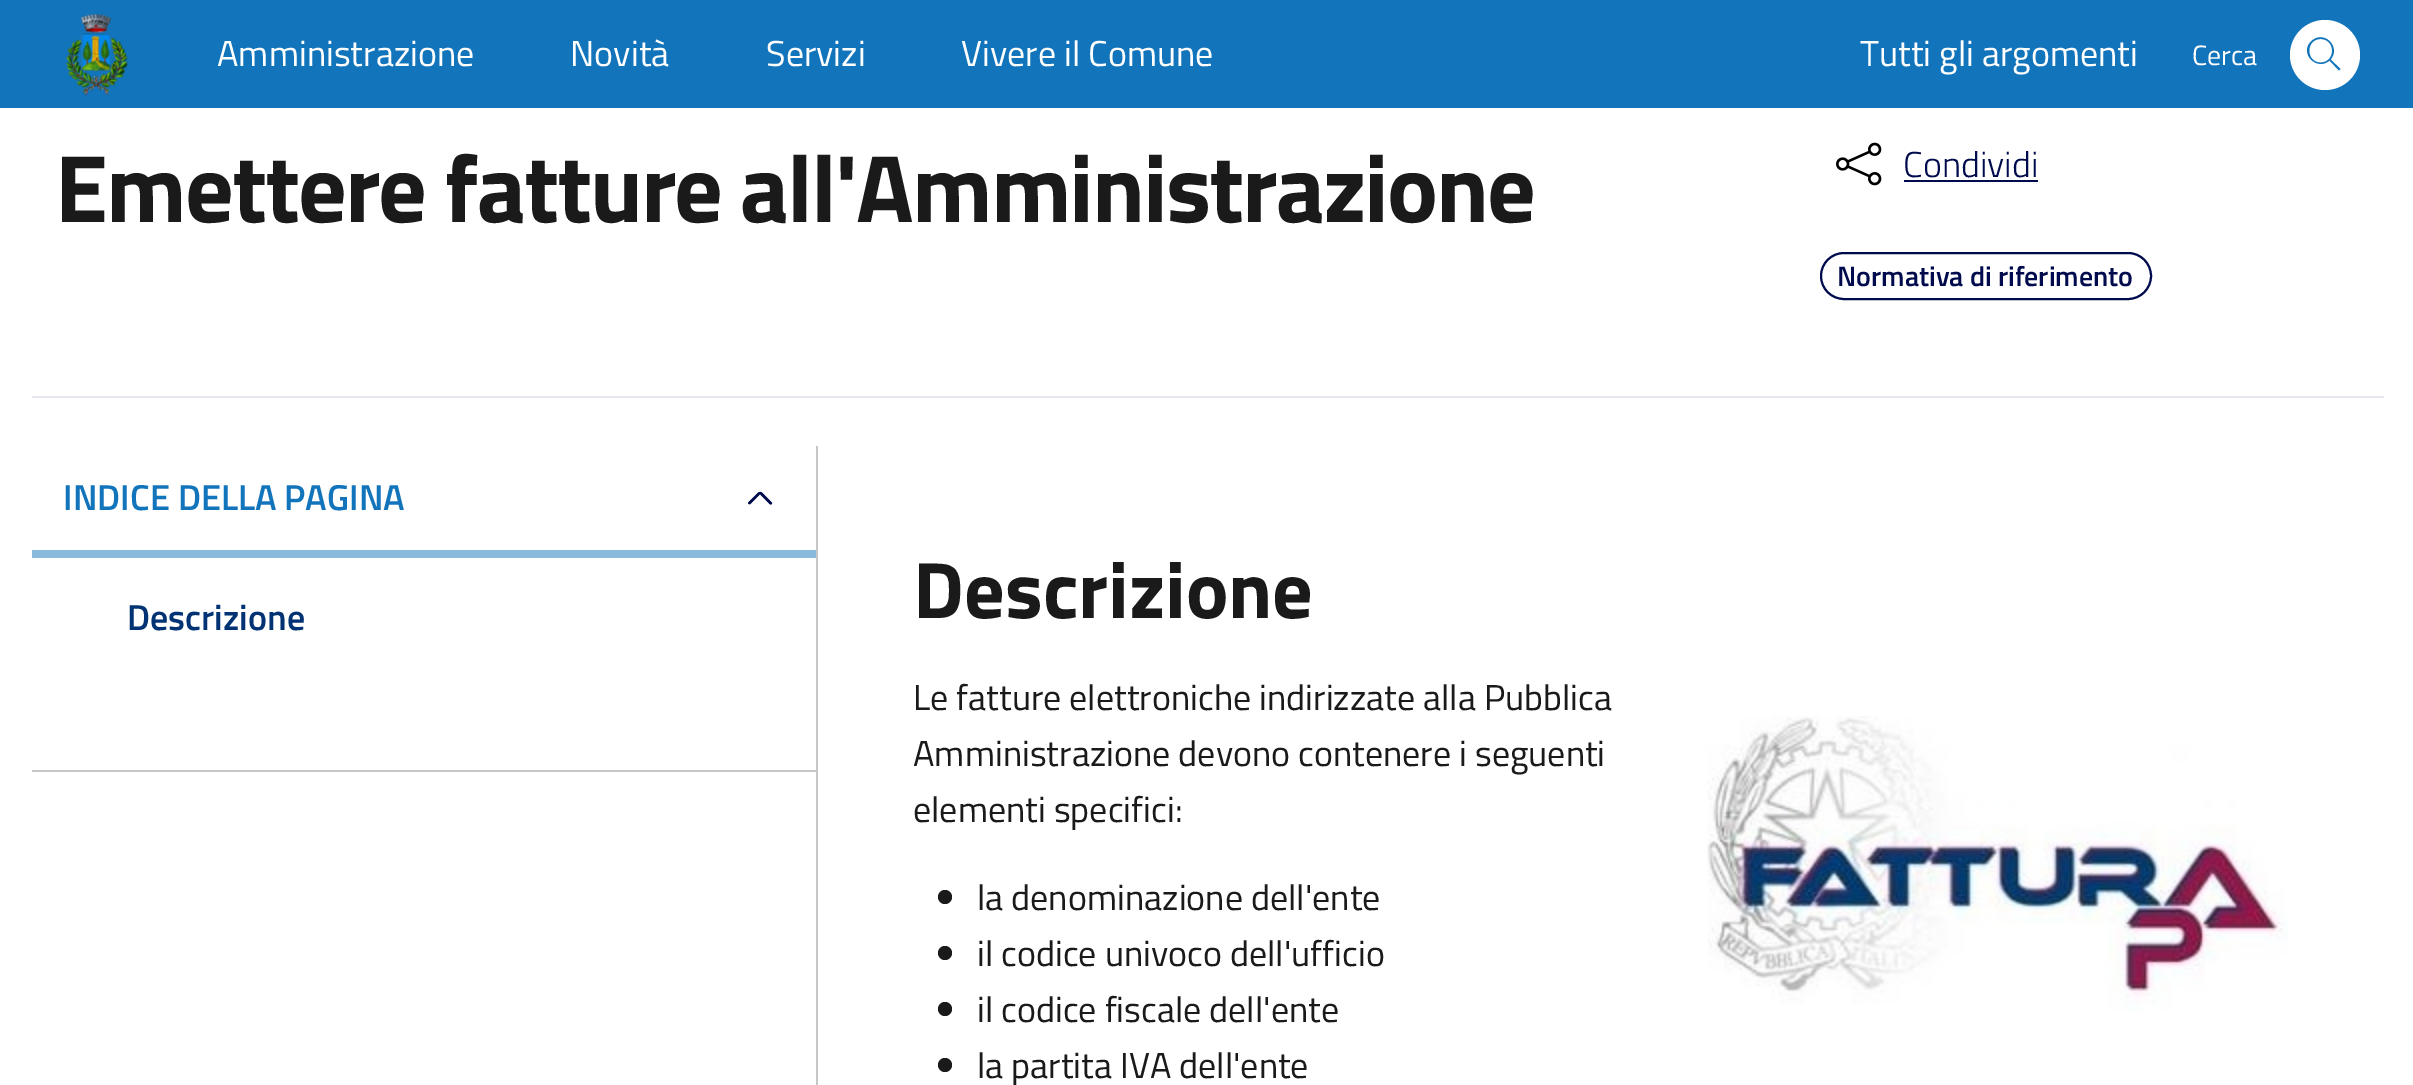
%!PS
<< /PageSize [2413 1085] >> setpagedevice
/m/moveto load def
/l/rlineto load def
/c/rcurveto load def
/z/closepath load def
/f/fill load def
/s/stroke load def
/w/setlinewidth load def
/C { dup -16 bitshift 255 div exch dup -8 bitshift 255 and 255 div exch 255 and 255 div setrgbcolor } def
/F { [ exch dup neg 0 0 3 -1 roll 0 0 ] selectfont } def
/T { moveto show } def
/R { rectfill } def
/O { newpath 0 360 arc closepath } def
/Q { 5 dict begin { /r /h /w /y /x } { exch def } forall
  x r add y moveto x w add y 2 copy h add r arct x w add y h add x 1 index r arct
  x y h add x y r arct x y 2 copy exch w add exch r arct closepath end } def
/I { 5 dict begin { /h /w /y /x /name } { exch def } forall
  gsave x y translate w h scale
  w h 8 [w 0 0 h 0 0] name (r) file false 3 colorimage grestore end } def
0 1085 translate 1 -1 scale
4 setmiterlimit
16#FFFFFF C
0 0 2413 1085 R
16#1274BB C
0 0 2413 108 R
(1.rgb) 65 13 63 83 I
/TitilliumWeb-Regular 36 F
16#FFFFFF C
(Amministrazione) 217 66 T
(Novità) 570 66 T
(Servizi) 766 66 T
(Vivere il Comune) 961 66 T
(Tutti gli argomenti) 1860 66 T
/TitilliumWeb-Regular 28 F
(Cerca) 2192 65 T
2325 55 35 O f
16#1274BB C
2340.5 69 m -10 -9.5 l 11 -12.5 -7 -30.5 -19.5 -18 c -12 12 6 30 18.5 19 c 9.5 10 l z 2320.5 62.5 m -15 0 -15 -23.5 0 -23.5 c 15.5 0 15.5 23.5 0 23.5 c z f
/TitilliumWeb-Bold 96 F
16#1A1A1A C
55 222 m -2 0 (Emettere fatture all'Amministrazione) ashow
(2.rgb) 1836 142 46 44 I
/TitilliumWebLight-Light 36 F
16#000B4D C
(Condividi) 1903 177 T
1904 180 134 2 R
2 w
1821 253 330 46 23 Q s
/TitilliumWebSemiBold-SemiBold 28 F
(Normativa di riferimento) 1837 286 T
16#E9E6F2 C
32 396 2352 2 R
16#C5C7C9 C
32 770 784 2 R
/TitilliumWebSemiBold-SemiBold 36 F
16#1274BB C
(INDICE DELLA PAGINA) 63 510 T
(3.rgb) 748 491 25 14 I
16#89BADD C
32 550 784 8 R
16#003274 C
(Descrizione) 127 630 T
16#C5C7C9 C
816 446 2 639 R
/TitilliumWeb-Bold 80 F
16#1A1A1A C
(Descrizione) 913 618 T
/TitilliumWeb-Regular 36 F
(Le fatture elettroniche indirizzate alla Pubblica) 913 710 T
(Amministrazione devono contenere i seguenti) 913 766 T
(elementi specifici:) 913 822 T
945 897 7 O f
(la denominazione dell'ente) 977 910 T
945 953 7 O f
(il codice univoco dell'ufficio) 977 966 T
945 1009 7 O f
(il codice fiscale dell'ente) 977 1022 T
945 1065 7 O f
(la partita IVA dell'ente) 977 1078 T
(4.rgb) 1707 716 581 295 I
showpage
